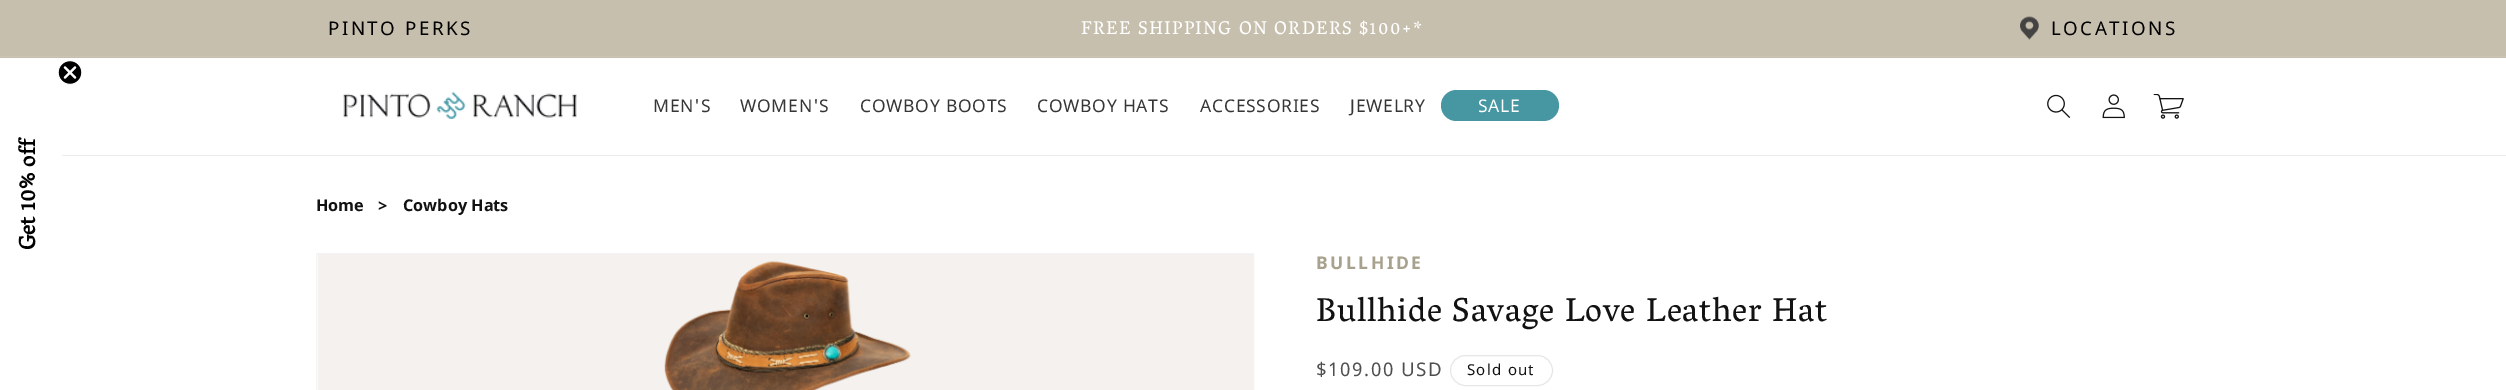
%!PS
<< /PageSize [2506 390] >> setpagedevice
/m/moveto load def
/f/fill load def
/s/stroke load def
/q/gsave load def
/Q_/grestore load def
/C { dup -16 bitshift 255 div exch dup -8 bitshift 255 and 255 div exch 255 and 255 div setrgbcolor } def
/F { [ exch dup neg 0 0 3 -1 roll 0 0 ] selectfont } def
/T { moveto show } def
/R { rectfill } def
/Q { 5 dict begin { /r /h /w /y /x } { exch def } forall
  x r add y moveto x w add y 2 copy h add r arct x w add y h add x 1 index r arct
  x y h add x y r arct x y 2 copy exch w add exch r arct closepath end } def
/I { 5 dict begin { /h /w /y /x /name } { exch def } forall
  gsave x y translate w h scale
  w h 8 [w 0 0 h 0 0] name (r) file false 3 colorimage grestore end } def
0 390 translate 1 -1 scale
4 setmiterlimit
16#FFFFFF C
0 0 2506 390 R
16#C6BFAD C
0 0 2506 58 R
16#CBC4B4 C
0 56 2506 1 R
/NotoSans-Regular 18.75 F
16#010101 C
328 35 m 2.5 0 (PINTO PERKS) ashow
/VesperLibre-Regular 18.75 F
16#FFFFFF C
1081 34 m 1.25 0 (FREE SHIPPING ON ORDERS $100+*) ashow
(1.rgb) 2020 16 19 24 I
/NotoSans-Regular 18.75 F
16#010101 C
2051 35 m 2.5 0 (LOCATIONS) ashow
16#ECECEC C
62 155 2444 1 R
(2.rgb) 343 92 234 28 I
/NotoSans-Regular 17.5 F
16#363636 C
653 112 m .75 0 (MEN'S) ashow
740 112 m .75 0 (WOMEN'S) ashow
860 112 m .75 0 (COWBOY BOOTS) ashow
1037 112 m .75 0 (COWBOY HATS) ashow
1200 112 m .75 0 (ACCESSORIES) ashow
1350 112 m .75 0 (JEWELRY) ashow
16#4797A3 C
1441 90 118 31 15.5 Q f
16#FFFFFF C
1478 112 m .75 0 (SALE) ashow
(3.rgb) 2047 94 23 24 I
(4.rgb) 2102 94 23 25 I
(5.rgb) 2153 94 31 25 I
(6.rgb) 58 60 24 25 I
/VesperLibre-Bold 22.5 F
16#010101 C
q 35 250 translate -90 rotate 0 0 m (Get 10% off) show Q_
/NotoSans-Bold 16.25 F
16#121212 C
(Home) 316 211 T
(>) 378 211 T
(Cowboy Hats) 403 211 T
16#F3F3F3 C
316.5 253.5 937 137 rectstroke
16#F4F1EE C
318 254 935 136 R
(7.rgb) 664 261 247 129 I
/NotoSans-Bold 17.5 F
16#A8A18D C
1316 269 m 2.5 0 (BULLHIDE) ashow
/VesperLibre-Regular 33.75 F
16#121212 C
1316 321 m .75 0 (Bullhide Savage Love Leather Hat) ashow
/NotoSans-Regular 18.75 F
16#4F4F4F C
1316 376 m 1.6 0 ($109.00 USD) ashow
16#E7E7E7 C
1450.5 355.5 102 30 15 Q s
/NotoSans-Regular 15 F
16#121212 C
1467 375 m 1.25 0 (Sold out) ashow
showpage
